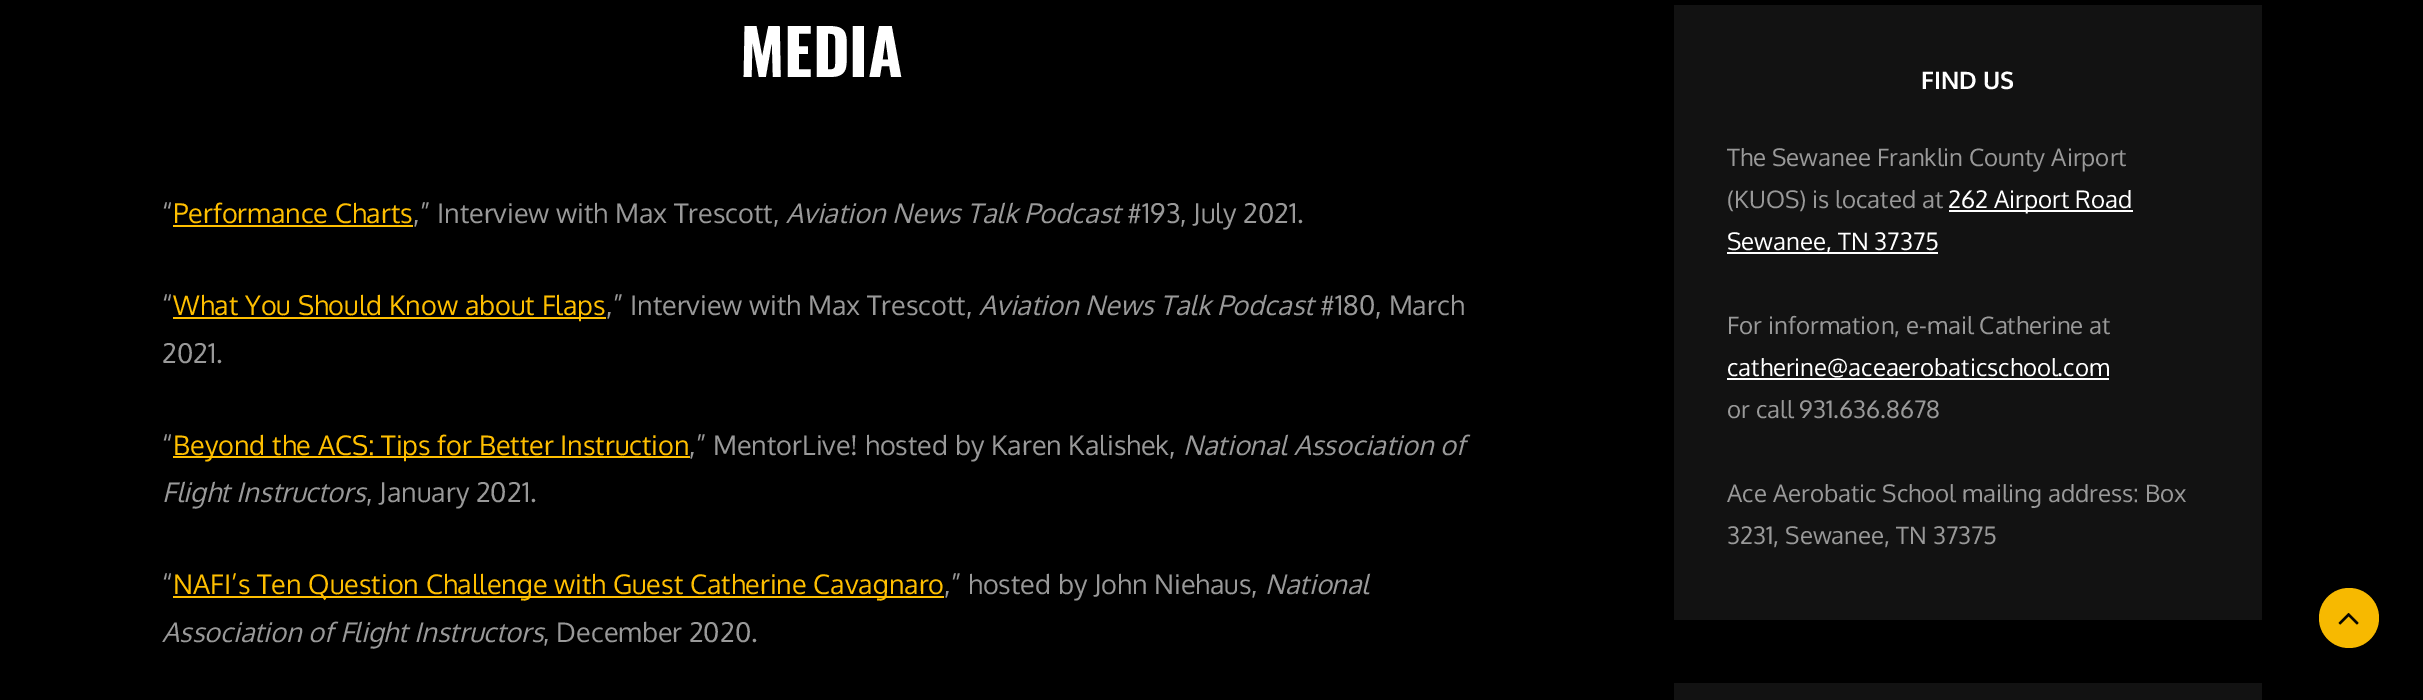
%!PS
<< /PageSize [2423 700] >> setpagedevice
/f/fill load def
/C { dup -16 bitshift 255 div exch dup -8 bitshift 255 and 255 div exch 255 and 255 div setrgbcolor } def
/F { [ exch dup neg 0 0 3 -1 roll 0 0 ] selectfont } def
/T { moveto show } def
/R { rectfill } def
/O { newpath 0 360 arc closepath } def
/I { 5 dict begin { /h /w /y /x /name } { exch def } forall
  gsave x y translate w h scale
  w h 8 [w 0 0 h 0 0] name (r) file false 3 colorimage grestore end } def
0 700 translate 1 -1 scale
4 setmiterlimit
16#000000 C
0 0 2423 700 R
/Oswald-Bold 63 F
16#FFFFFF C
(MEDIA) 740 77 T
/Oxygen-Regular 27 F
16#999999 C
(“) 162 223 T
16#FFBF00 C
(Performance Charts) 173 223 T
173 225 240 2 R
16#999999 C
(,” Interview with Max Trescott,) 413 223 T
/Oxygen-Italic 27 F
(Aviation News Talk Podcast) 786 223 T
/Oxygen-Regular 27 F
(#193, July 2021.) 1127 223 T
(“) 162 315 T
16#FFBF00 C
173 317 433 2 R
(What You Should Know about Flaps) 173 315 T
16#999999 C
(,” Interview with Max Trescott,) 606 315 T
/Oxygen-Italic 27 F
(Aviation News Talk Podcast) 979 315 T
/Oxygen-Regular 27 F
(#180, March) 1320 315 T
(2021.) 162 363 T
(“) 162 455 T
16#FFBF00 C
173 456 517 2 R
(Beyond the ACS: Tips for Better Instruction) 173 455 T
16#999999 C
(,” MentorLive! hosted by Karen Kalishek,) 689 455 T
/Oxygen-Italic 27 F
(National Association of) 1183 455 T
(Flight Instructors) 162 502 T
/Oxygen-Regular 27 F
(, January 2021.) 366 502 T
(“) 162 594 T
16#FFBF00 C
173 596 771 2 R
(NAFI’s Ten Question Challenge with Guest Catherine Cavagnaro) 173 594 T
16#999999 C
(,” hosted by John Niehaus,) 944 594 T
/Oxygen-Italic 27 F
(National) 1265 594 T
(Association of Flight Instructors) 162 642 T
/Oxygen-Regular 27 F
(, December 2020.) 543 642 T
16#121212 C
1674 5 588 615 R
/Oxygen-Bold 24 F
16#FFFFFF C
(FIND US) 1921 89 T
/Oxygen-Regular 24 F
16#999999 C
(The Sewanee Franklin County Airport) 1727 166 T
(\(KUOS\) is located at) 1727 208 T
16#FFFFFF C
1949 210 184 2 R
(262 Airport Road) 1948 208 T
1727 252 211 2 R
(Sewanee, TN 37375) 1727 250 T
16#999999 C
(For information, e-mail Catherine at) 1727 334 T
16#FFFFFF C
(catherine@aceaerobaticschool.com) 1727 376 T
1727 378 382 2 R
16#999999 C
(or call 931.636.8678) 1727 418 T
(Ace Aerobatic School mailing address: Box) 1727 502 T
(3231, Sewanee, TN 37375) 1727 544 T
16#121212 C
1674 683 588 17 R
16#F7B900 C
2349 618 30 O f
(1.rgb) 2338 613 21 12 I
showpage
